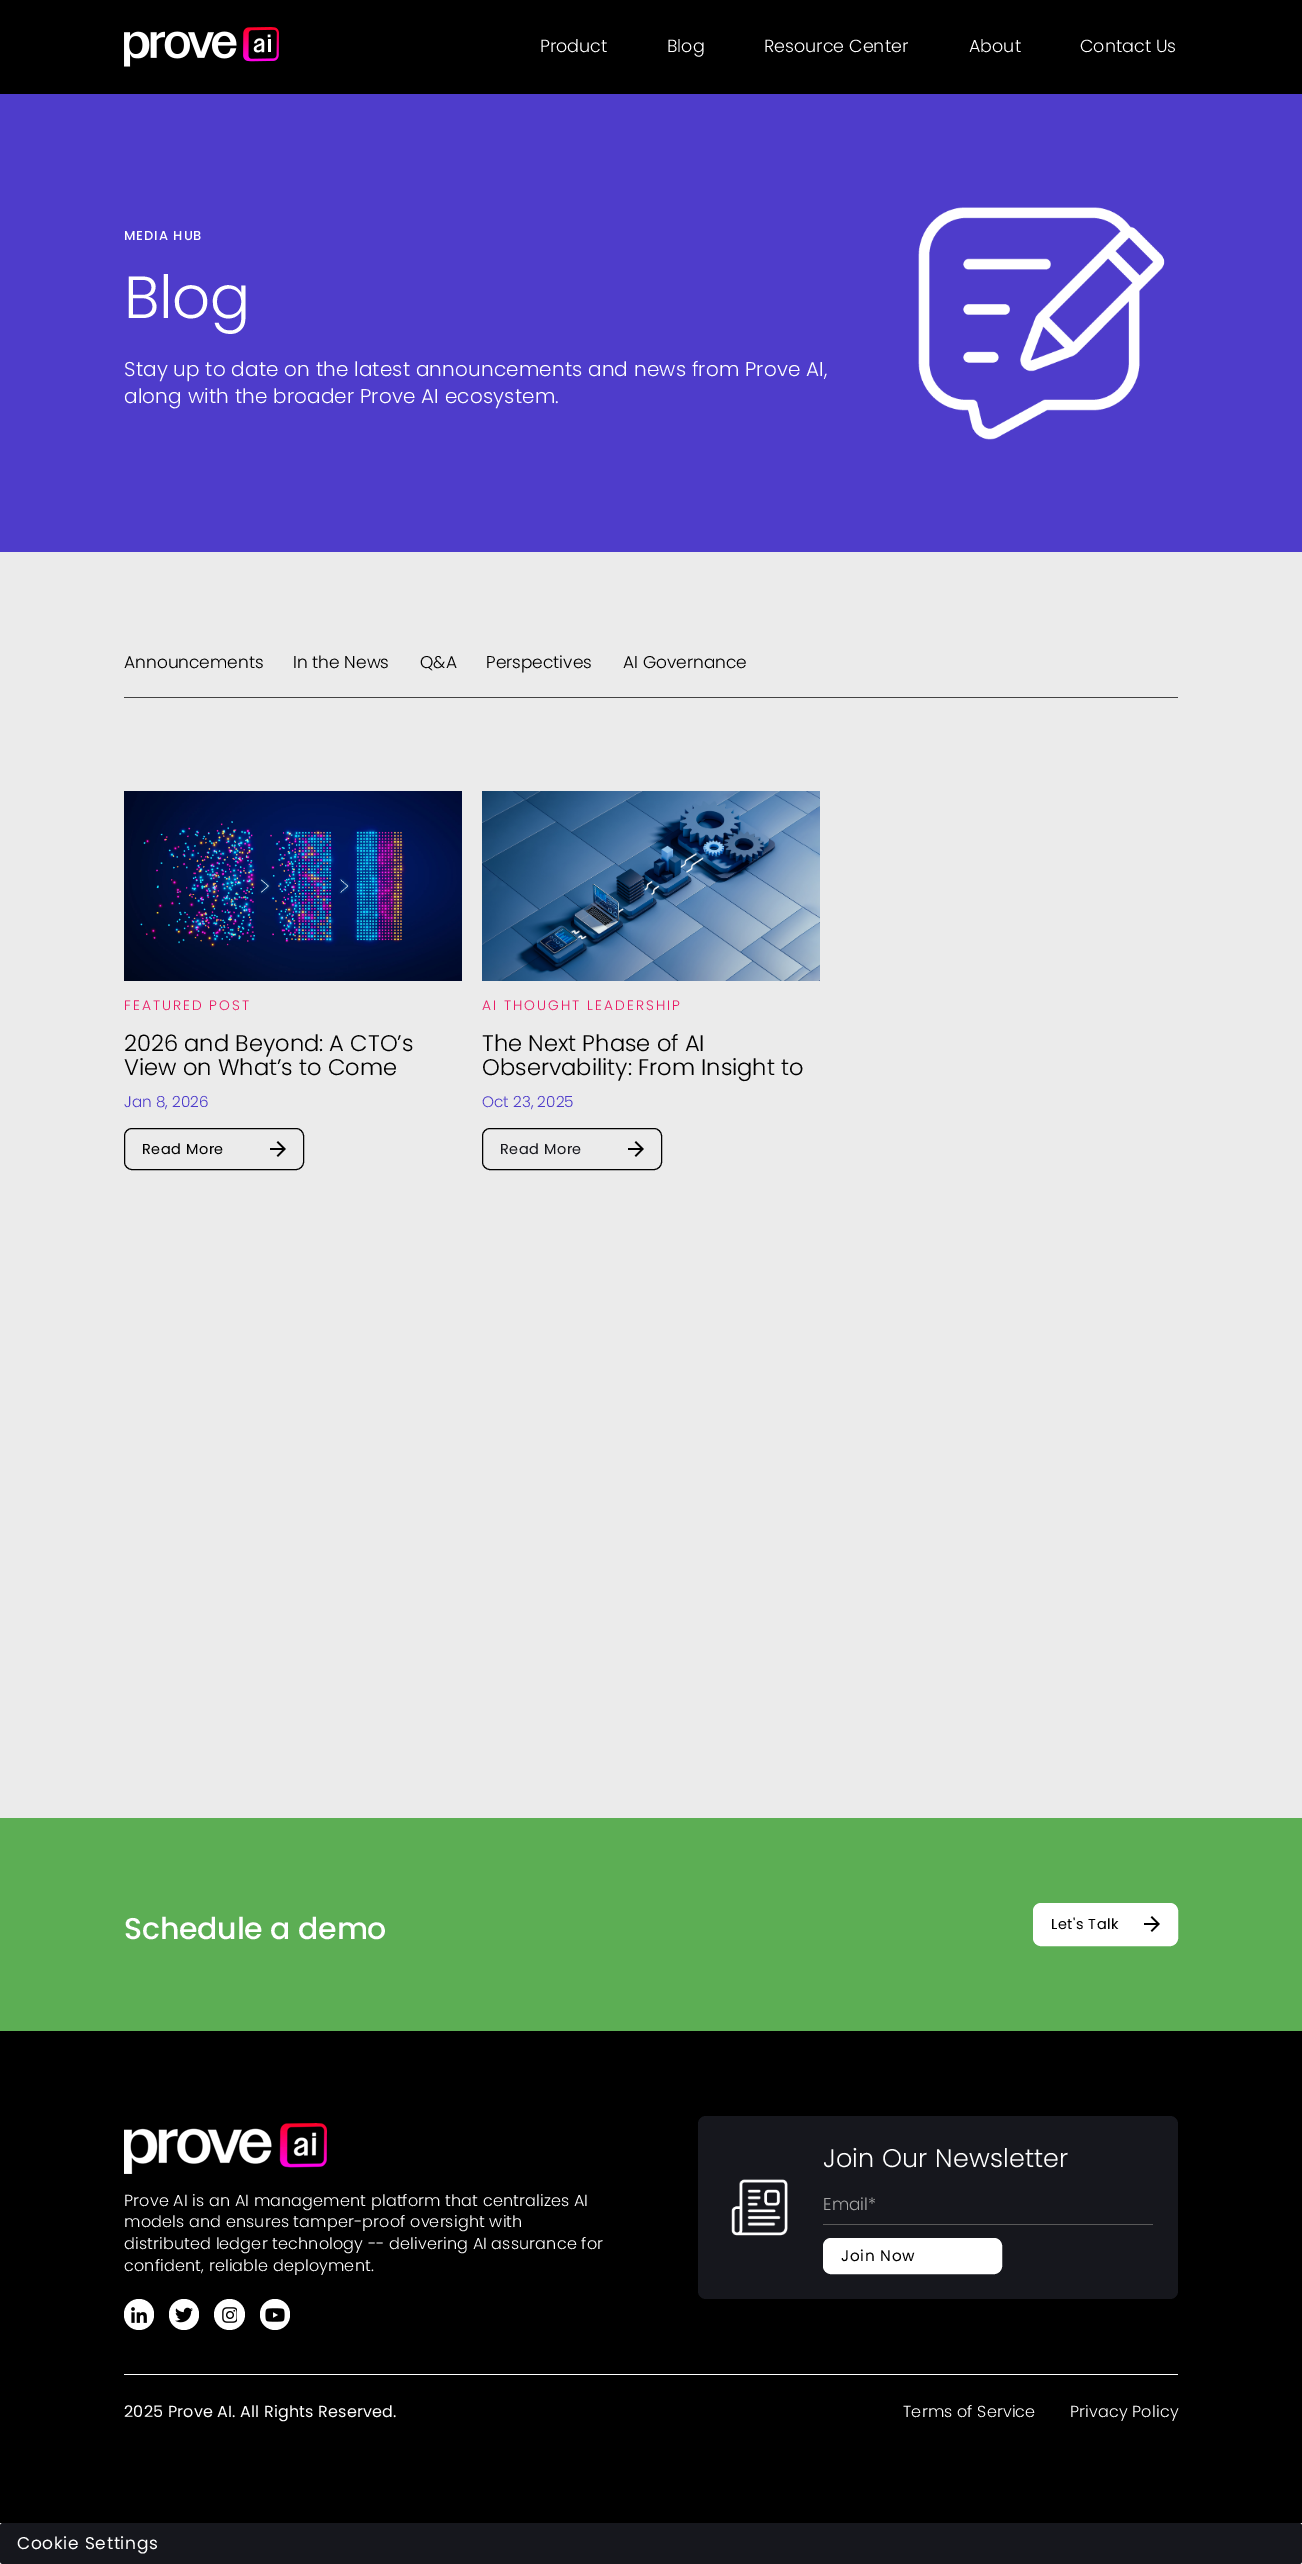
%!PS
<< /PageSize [1302 2564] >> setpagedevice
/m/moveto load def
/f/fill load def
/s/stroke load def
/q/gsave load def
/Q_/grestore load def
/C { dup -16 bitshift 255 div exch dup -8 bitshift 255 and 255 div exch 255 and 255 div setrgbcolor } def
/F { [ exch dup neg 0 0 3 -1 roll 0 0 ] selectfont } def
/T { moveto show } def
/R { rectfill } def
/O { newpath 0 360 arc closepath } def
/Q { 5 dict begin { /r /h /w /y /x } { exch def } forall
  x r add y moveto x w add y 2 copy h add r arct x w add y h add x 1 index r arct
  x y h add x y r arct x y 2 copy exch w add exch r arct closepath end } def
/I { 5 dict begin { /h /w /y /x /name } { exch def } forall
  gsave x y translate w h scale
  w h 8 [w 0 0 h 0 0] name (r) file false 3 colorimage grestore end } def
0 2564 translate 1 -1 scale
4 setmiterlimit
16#EBEBEB C
0 0 1302 2564 R
16#000000 C
0 0 1302 94 R
(1.rgb) 124 27 155 40 I
/Poppins-Light 17.5 F
16#FFFFFF C
(Product) 540 52 T
(Blog) 667 52 T
(Resource Center) 764 52 T
(About) 969 52 T
(Contact Us) 1080 52 T
16#4E3CCB C
0 94 1302 458 R
/Poppins-Medium 13 F
16#FFFFFF C
124 240 m 1 0 (MEDIA HUB) ashow
/Poppins-Light 59.5 F
124 318 m -.5 0 (Blog) ashow
/Poppins-Light 20 F
124 376 m .17 0 (Stay up to date on the latest announcements and news from Prove AI,) ashow
124 403 m .17 0 (along with the broader Prove AI ecosystem.) ashow
(2.rgb) 918 207 247 233 I
/Poppins-Light 17 F
16#000000 C
(Announcements) 124 668 T
(In the News) 293 668 T
(Q&A) 420 668 T
(Perspectives) 486 668 T
(AI Governance) 623 668 T
16#434343 C
124 697 1054 1 R
(3.rgb) 124 791 338 190 I
/Poppins-Light 13.75 F
16#E91C65 C
124 1010 m 2 0 (FEATURED POST) ashow
/Poppins-Light 22.6 F
16#000000 C
(2026 and Beyond: A CTO’s) 124 1051 T
(View on What’s to Come) 124 1075 T
/Poppins-Light 15.25 F
16#4E3CCB C
(Jan 8, 2026) 124 1107 T
16#000000 C
124.5 1128.5 179 41 7.5 Q s
/Poppins-Regular 14.5 F
142 1154 m .5 0 (Read More) ashow
(4.rgb) 270 1141 16 16 I
(5.rgb) 482 791 338 190 I
/Poppins-Light 13.75 F
16#E91C65 C
482 1010 m 2 0 (AI THOUGHT LEADERSHIP) ashow
/Poppins-Light 22.6 F
16#000000 C
(The Next Phase of AI) 482 1051 T
(Observability: From Insight to) 482 1075 T
/Poppins-Light 15.25 F
16#4E3CCB C
(Oct 23, 2025) 482 1107 T
16#000000 C
482.5 1128.5 179 41 7.5 Q s
/Poppins-Regular 14.5 F
16#16171D C
500 1154 m .5 0 (Read More) ashow
(4.rgb) 628 1141 16 16 I
16#000000 C
0 2031 1302 492 R
16#5CAE54 C
0 1818 1302 213 R
/Poppins-Medium 30 F
16#FFFFFF C
124 1939 m -.2 0 (Schedule a demo) ashow
1033.5 1903.5 144 42 7.5 Q q f Q_
s
/Poppins-Regular 14.5 F
16#000000 C
1051 1929 m .5 0 (Let's Talk) ashow
(6.rgb) 1144 1916 16 16 I
(7.rgb) 124 2123 203 51 I
/Poppins-Light 16 F
16#FFFFFF C
124 2206 m .17 0 (Prove AI is an AI management platform that centralizes AI) ashow
124 2227 m .17 0 (models and ensures tamper-proof oversight with) ashow
124 2249 m .17 0 (distributed ledger technology -- delivering AI assurance for) ashow
124 2271 m .17 0 (confident, reliable deployment.) ashow
16#16171D C
698 2116 480 183 8 Q f
(8.rgb) 731 2179 57 57 I
/Poppins-Light 25.5 F
16#FFFFFF C
823 2167 m .17 0 (Join Our Newsletter) ashow
16#595959 C
823 2224 330 1 R
/Poppins-Light 17 F
16#A4A4A4 C
(Email*) 823 2210 T
16#FFFFFF C
823.5 2238.5 178 35 7.5 Q q f Q_
s
/Poppins-Regular 15.25 F
16#000000 C
841 2261 m .75 0 (Join Now) ashow
16#FFFFFF C
124 2299 30 31 15 Q f
(9.rgb) 131 2307 16 16 I
169 2299 30 31 15 Q f
(10.rgb) 175 2307 18 16 I
229.5 2314.5 15.5 O f
(11.rgb) 222 2307 15 16 I
260 2299 30 31 15 Q f
(12.rgb) 265 2308 20 14 I
124 2374 1054 1 R
/Poppins-Regular 16 F
124 2417 m .17 0 (2025 Prove AI. All Rights Reserved.) ashow
/Poppins-Light 16 F
903 2417 m .17 0 (Terms of Service) ashow
1070 2417 m .17 0 (Privacy Policy) ashow
16#16171D C
.5 2523.5 1301 40 2.5 Q q f Q_
s
/Poppins-Regular 17 F
16#FFFFFF C
17 2549 m .7 0 (Cookie Settings) ashow
showpage
